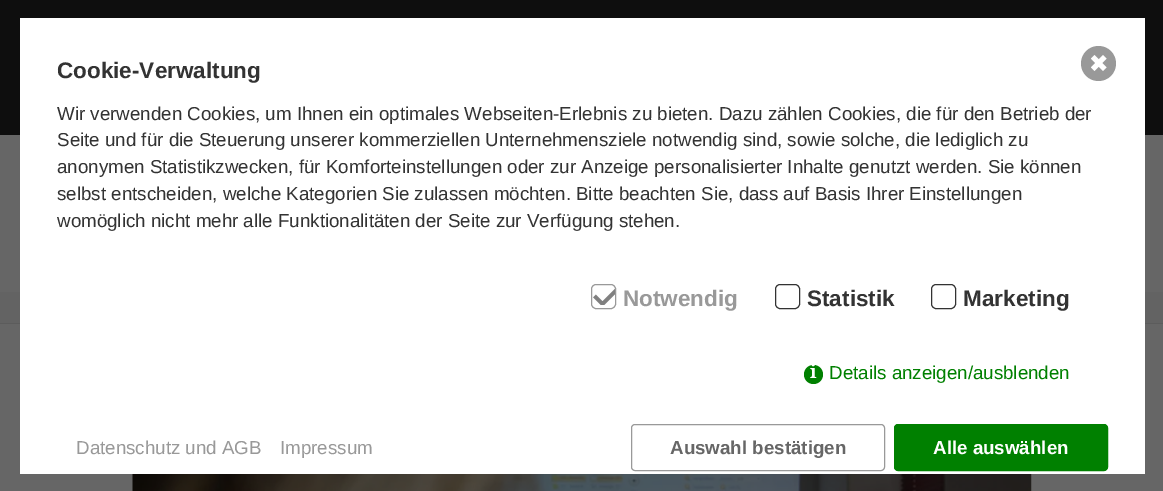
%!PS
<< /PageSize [1163 491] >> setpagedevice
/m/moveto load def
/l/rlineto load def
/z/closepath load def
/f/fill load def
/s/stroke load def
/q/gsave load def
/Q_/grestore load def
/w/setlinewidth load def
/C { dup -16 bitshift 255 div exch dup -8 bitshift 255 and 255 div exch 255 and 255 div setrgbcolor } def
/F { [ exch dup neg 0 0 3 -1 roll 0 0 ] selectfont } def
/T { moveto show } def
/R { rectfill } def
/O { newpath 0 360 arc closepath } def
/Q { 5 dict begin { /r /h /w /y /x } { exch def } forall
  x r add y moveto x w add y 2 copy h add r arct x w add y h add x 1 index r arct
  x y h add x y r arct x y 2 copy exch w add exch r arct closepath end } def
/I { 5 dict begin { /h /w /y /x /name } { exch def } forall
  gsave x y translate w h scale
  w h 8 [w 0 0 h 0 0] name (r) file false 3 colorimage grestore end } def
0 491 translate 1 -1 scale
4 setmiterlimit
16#666666 C
0 0 1163 491 R
16#0E0E0E C
0 0 1163 135 R
q 0 292 m 1163 0 l 0 31 l -1163 0 l z clip newpath
<< /ShadingType 2 /ColorSpace /DeviceRGB /Coords [582 135 582 323] /Extend [true true] /Function << /FunctionType 2 /Domain [0 1] /C0 [.4 .4 .4] /C1 [.388 .388 .388] /N 1 >> >> shfill Q_
16#5C5C5C C
0 323 1163 1 R
16#FFFFFF C
20 18 1125 456 R
/LiberationSans-Bold 22.5 F
16#333333 C
(Cookie-Verwaltung) 57 78 T
/LiberationSans-Regular 18.75 F
(Wir verwenden Cookies, um Ihnen ein optimales Webseiten-Erlebnis zu bieten. Dazu zählen Cookies, die für den Betrieb der) 57 120 T
(Seite und für die Steuerung unserer kommerziellen Unternehmensziele notwendig sind, sowie solche, die lediglich zu) 57 146 T
(anonymen Statistikzwecken, für Komforteinstellungen oder zur Anzeige personalisierter Inhalte genutzt werden. Sie können) 57 173 T
(selbst entscheiden, welche Kategorien Sie zulassen möchten. Bitte beachten Sie, dass auf Basis Ihrer Einstellungen) 57 200 T
(womöglich nicht mehr alle Funktionalitäten der Seite zur Verfügung stehen.) 57 227 T
q
593 280 25 25 rectclip
591 284 25 25 5 Q clip newpath
16#808080 C
3.8 w
594.5 296 m 8 8 l 18.5 -18.5 l s
Q_
16#999999 C
591.5 284.5 24 24 4.5 Q s
/LiberationSans-Bold 22.5 F
(Notwendig) 623 306 T
16#333333 C
775.5 284.5 24 24 4.5 Q s
(Statistik) 807 306 T
931.5 284.5 24 24 4.5 Q s
(Marketing) 963 306 T
16#008000 C
813.5 374.5 9.5 O f
/NotoSerif-Bold 18.75 F
16#FFFFFF C
(i) 810 378 T
/LiberationSans-Regular 18.75 F
16#008000 C
(Details anzeigen/ausblenden) 829 379 T
16#999999 C
1098.5 63.5 17.5 O f
16#FFFFFF C
1103 55 m 3.5 3.5 l -12 12.5 l -3.5 -3.5 l z f
1091 58.5 m 3.5 -3.5 l 12 12.5 l -3.5 3.5 l z f
16#999999 C
(Datenschutz und AGB) 76 454 T
(Impressum) 280 454 T
631.5 424.5 253 46 3.5 Q s
/LiberationSans-Bold 18.75 F
16#666666 C
(Auswahl bestätigen) 670 454 T
16#008000 C
894.5 424.5 213 46 3.5 Q q f Q_
s
16#FFFFFF C
(Alle auswählen) 933 454 T
(1.rgb) 132 474 900 17 I
showpage
